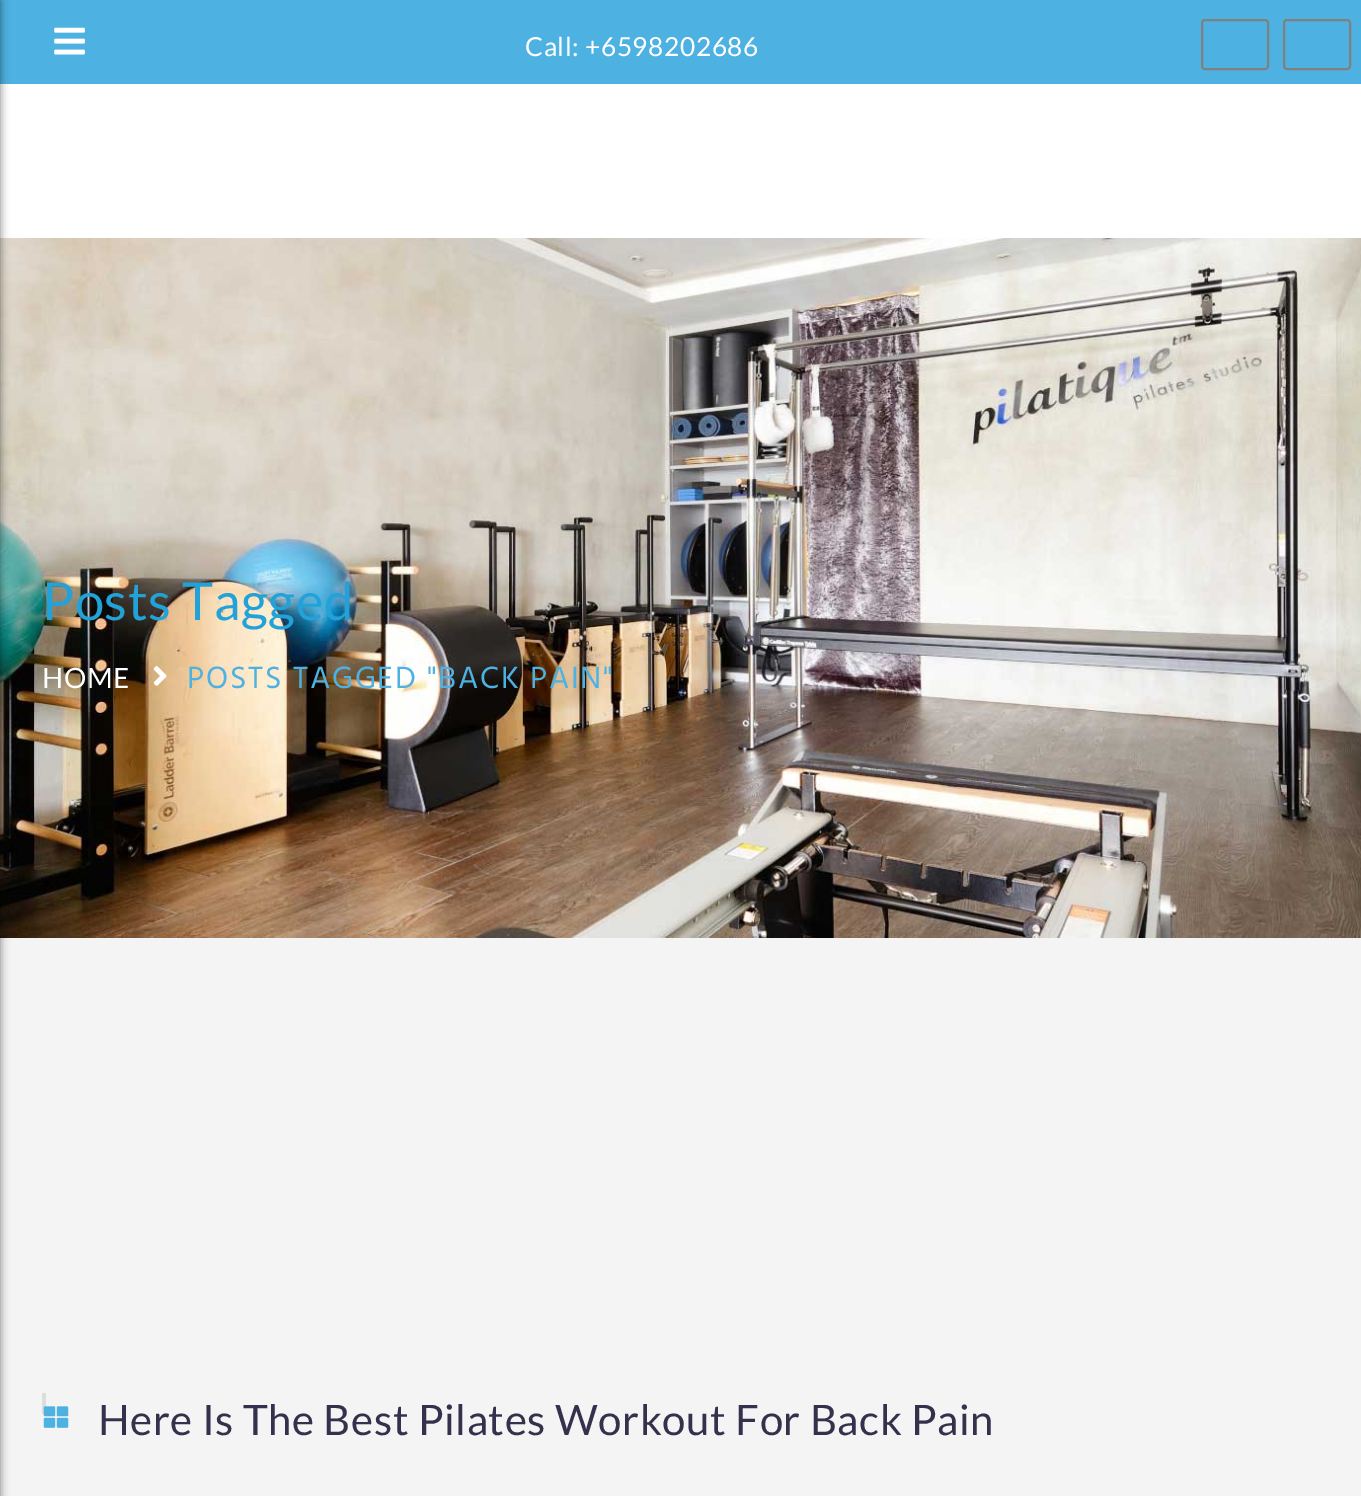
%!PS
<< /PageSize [1361 1496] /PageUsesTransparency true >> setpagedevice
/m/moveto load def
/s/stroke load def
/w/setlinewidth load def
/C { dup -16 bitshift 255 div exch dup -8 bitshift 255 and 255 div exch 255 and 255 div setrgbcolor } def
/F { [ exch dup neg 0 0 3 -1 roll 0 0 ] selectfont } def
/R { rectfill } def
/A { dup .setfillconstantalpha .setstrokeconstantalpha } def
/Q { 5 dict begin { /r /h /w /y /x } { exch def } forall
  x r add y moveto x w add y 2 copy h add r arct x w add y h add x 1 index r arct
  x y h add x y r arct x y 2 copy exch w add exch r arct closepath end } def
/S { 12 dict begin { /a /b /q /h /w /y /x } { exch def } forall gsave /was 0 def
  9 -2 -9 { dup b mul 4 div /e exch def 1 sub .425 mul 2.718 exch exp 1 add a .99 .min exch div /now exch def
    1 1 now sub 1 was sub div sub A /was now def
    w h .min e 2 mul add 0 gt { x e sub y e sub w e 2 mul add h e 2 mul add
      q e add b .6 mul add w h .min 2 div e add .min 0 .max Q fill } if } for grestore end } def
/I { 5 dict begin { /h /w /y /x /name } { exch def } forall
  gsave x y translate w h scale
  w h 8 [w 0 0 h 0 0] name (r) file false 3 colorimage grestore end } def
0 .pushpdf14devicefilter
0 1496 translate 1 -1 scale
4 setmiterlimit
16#F4F4F4 C
0 0 1361 1496 R
16#4DB1E2 C
0 0 1361 84 R
16#FFFFFF C
0 84 1361 154 R
(2.rgb) 0 238 1361 700 I
16#000000 C
-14 0 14 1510 0 4.5 .5 S
(1.rgb) 54 27 31 28 I
/Lato-Regular 26.25 F
16#FFFFFF C
525 56 m .6 0 (Call: +6598202686) ashow
16#808080 C
2 w
1202 20 66 49 3 Q s
1284 20 66 49 3 Q s
/Lato-Regular 52.5 F
16#22A2D8 C
42 620 m .6 0 (Posts Tagged) ashow
/Lato-Regular 28 F
16#FFFFFF C
42 688 m .6 0 (HOME) ashow
(3.rgb) 153 666 14 20 I
/HindVadodara-Regular 31.5 F
16#4DB1E2 C
187 688 m 1.75 0 (POSTS TAGGED "BACK PAIN") ashow
16#DDDDDD C
42 1393 4 21 R
(4.rgb) 43 1406 26 22 I
/Lato-Regular 42 F
16#34314C C
98 1435 m .6 0 (Here Is The Best Pilates Workout For Back Pain) ashow
.poppdf14devicefilter showpage
